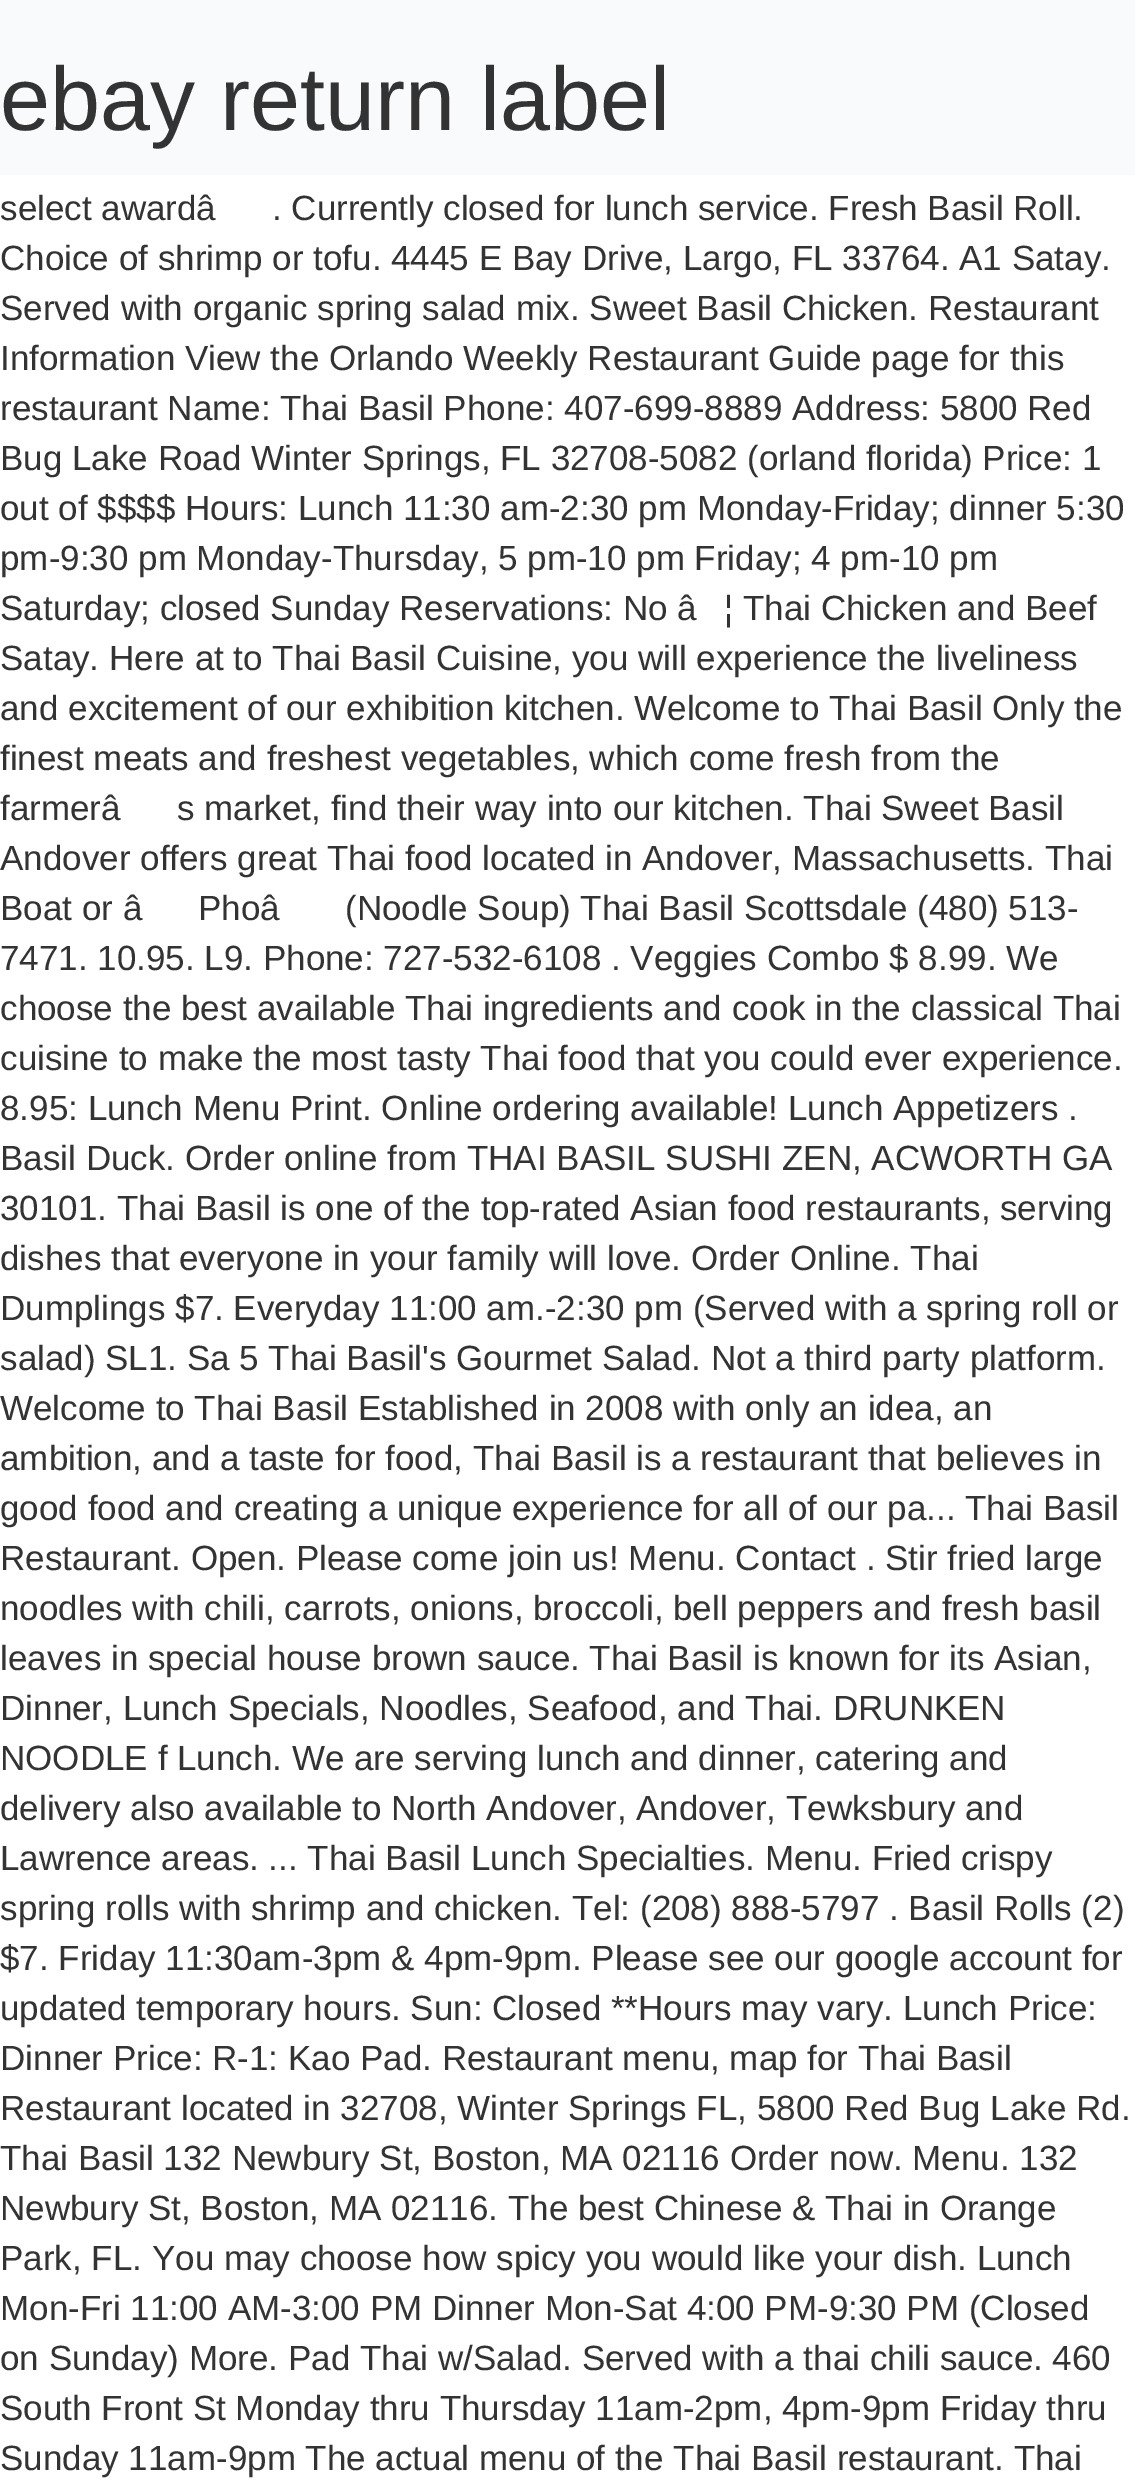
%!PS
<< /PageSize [1135 2490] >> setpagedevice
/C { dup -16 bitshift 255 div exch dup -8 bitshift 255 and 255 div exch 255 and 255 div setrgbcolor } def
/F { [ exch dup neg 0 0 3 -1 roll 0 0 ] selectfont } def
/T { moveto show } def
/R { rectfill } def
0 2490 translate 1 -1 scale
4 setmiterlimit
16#FFFFFF C
0 0 1135 2490 R
16#F9FAFB C
0 0 1135 175 R
/LiberationSans-Regular 90 F
16#333333 C
(ebay return label) 0 130 T
/LiberationSans-Regular 35 F
(select awardâ) 0 220 T
(. Currently closed for lunch service. Fresh Basil Roll.) 272 220 T
(Choice of shrimp or tofu. 4445 E Bay Drive, Largo, FL 33764. A1 Satay.) 0 270 T
(Served with organic spring salad mix. Sweet Basil Chicken. Restaurant) 0 320 T
(Information View the Orlando Weekly Restaurant Guide page for this) 0 370 T
(restaurant Name: Thai Basil Phone: 407-699-8889 Address: 5800 Red) 0 420 T
(Bug Lake Road Winter Springs, FL 32708-5082 \(orland florida\) Price: 1) 0 470 T
(out of $$$$ Hours: Lunch 11:30 am-2:30 pm Monday-Friday; dinner 5:30) 0 520 T
(pm-9:30 pm Monday-Thursday, 5 pm-10 pm Friday; 4 pm-10 pm) 0 570 T
(Saturday; closed Sunday Reservations: No â) 0 620 T
(¦ Thai Chicken and Beef) 724 620 T
(Satay. Here at to Thai Basil Cuisine, you will experience the liveliness) 0 670 T
(and excitement of our exhibition kitchen. Welcome to Thai Basil Only the) 0 720 T
(finest meats and freshest vegetables, which come fresh from the) 0 770 T
(farmerâ) 0 820 T
(s market, find their way into our kitchen. Thai Sweet Basil) 177 820 T
(Andover offers great Thai food located in Andover, Massachusetts. Thai) 0 870 T
(Boat or â) 0 920 T
(Phoâ) 198 920 T
(\(Noodle Soup\) Thai Basil Scottsdale \(480\) 513-) 345 920 T
(7471. 10.95. L9. Phone: 727-532-6108 . Veggies Combo $ 8.99. We) 0 970 T
(choose the best available Thai ingredients and cook in the classical Thai) 0 1020 T
(cuisine to make the most tasty Thai food that you could ever experience.) 0 1070 T
(8.95: Lunch Menu Print. Online ordering available! Lunch Appetizers .) 0 1120 T
(Basil Duck. Order online from THAI BASIL SUSHI ZEN, ACWORTH GA) 0 1170 T
(30101. Thai Basil is one of the top-rated Asian food restaurants, serving) 0 1220 T
(dishes that everyone in your family will love. Order Online. Thai) 0 1270 T
(Dumplings $7. Everyday 11:00 am.-2:30 pm \(Served with a spring roll or) 0 1320 T
(salad\) SL1. Sa 5 Thai Basil's Gourmet Salad. Not a third party platform.) 0 1370 T
(Welcome to Thai Basil Established in 2008 with only an idea, an) 0 1420 T
(ambition, and a taste for food, Thai Basil is a restaurant that believes in) 0 1470 T
(good food and creating a unique experience for all of our pa... Thai Basil) 0 1520 T
(Restaurant. Open. Please come join us! Menu. Contact . Stir fried large) 0 1570 T
(noodles with chili, carrots, onions, broccoli, bell peppers and fresh basil) 0 1620 T
(leaves in special house brown sauce. Thai Basil is known for its Asian,) 0 1670 T
(Dinner, Lunch Specials, Noodles, Seafood, and Thai. DRUNKEN) 0 1720 T
(NOODLE f Lunch. We are serving lunch and dinner, catering and) 0 1770 T
(delivery also available to North Andover, Andover, Tewksbury and) 0 1820 T
(Lawrence areas. ... Thai Basil Lunch Specialties. Menu. Fried crispy) 0 1870 T
(spring rolls with shrimp and chicken. Tel: \(208\) 888-5797 . Basil Rolls \(2\)) 0 1920 T
($7. Friday 11:30am-3pm & 4pm-9pm. Please see our google account for) 0 1970 T
(updated temporary hours. Sun: Closed **Hours may vary. Lunch Price:) 0 2020 T
(Dinner Price: R-1: Kao Pad. Restaurant menu, map for Thai Basil) 0 2070 T
(Restaurant located in 32708, Winter Springs FL, 5800 Red Bug Lake Rd.) 0 2120 T
(Thai Basil 132 Newbury St, Boston, MA 02116 Order now. Menu. 132) 0 2170 T
(Newbury St, Boston, MA 02116. The best Chinese & Thai in Orange) 0 2220 T
(Park, FL. You may choose how spicy you would like your dish. Lunch) 0 2270 T
(Mon-Fri 11:00 AM-3:00 PM Dinner Mon-Sat 4:00 PM-9:30 PM \(Closed) 0 2320 T
(on Sunday\) More. Pad Thai w/Salad. Served with a thai chili sauce. 460) 0 2370 T
(South Front St Monday thru Thursday 11am-2pm, 4pm-9pm Friday thru) 0 2420 T
(Sunday 11am-9pm The actual menu of the Thai Basil restaurant. Thai) 0 2470 T
showpage
